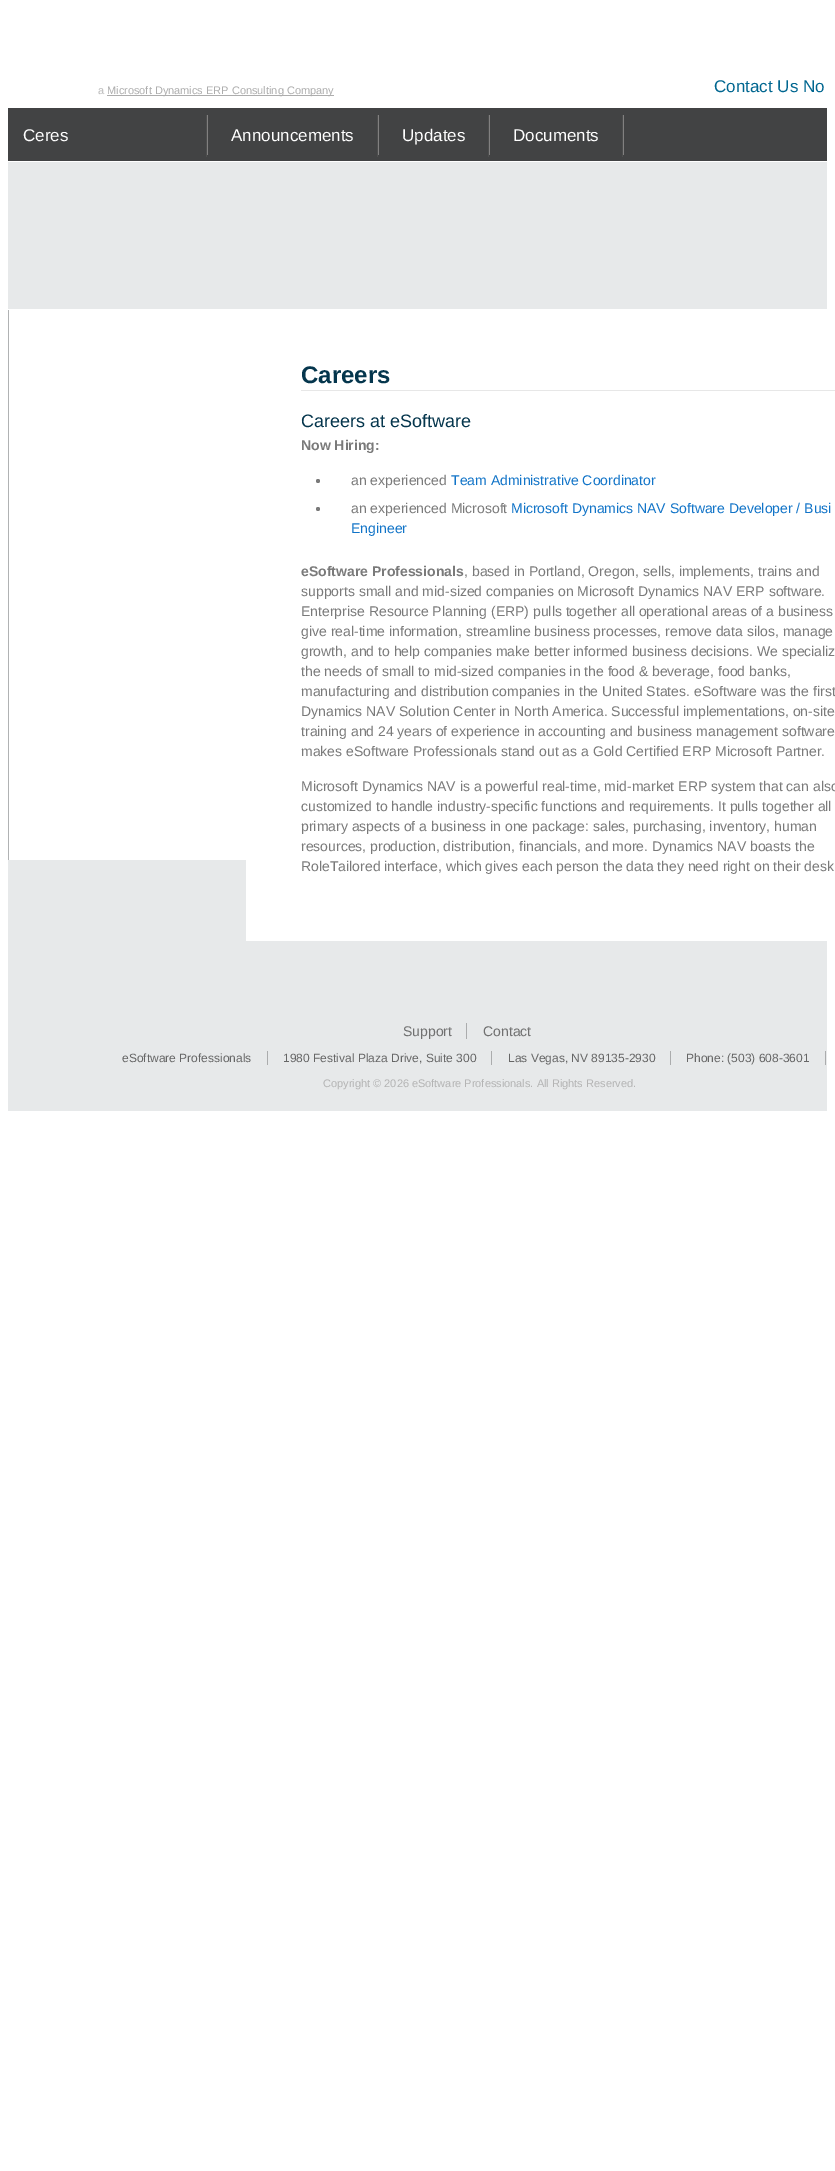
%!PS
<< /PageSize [835 2171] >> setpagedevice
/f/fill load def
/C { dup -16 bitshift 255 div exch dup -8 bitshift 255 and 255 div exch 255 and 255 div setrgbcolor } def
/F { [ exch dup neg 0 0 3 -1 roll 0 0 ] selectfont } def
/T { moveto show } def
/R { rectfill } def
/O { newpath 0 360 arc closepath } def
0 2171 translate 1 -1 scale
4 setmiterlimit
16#FFFFFF C
0 0 835 2171 R
16#E7E9EA C
8 162 819 949 R
/LiberationSans-Regular 11 F
16#BABABA C
(a) 98 94 T
16#ADADAD C
107 95 227 1 R
(Microsoft Dynamics ERP Consulting Company) 107 94 T
/LiberationSans-Regular 17 F
16#006690 C
(Contact Us No) 714 92 T
16#424344 C
8 108 819 53 R
16#818080 C
207 115 1 40 R
16#4D4E4E C
206 115 1 42 R
16#FFFFFF C
(Ceres) 23 141 T
16#818080 C
378 115 1 40 R
16#4D4E4E C
377 115 1 42 R
16#FFFFFF C
(Announcements) 231 141 T
16#818080 C
489 115 1 40 R
16#4D4E4E C
488 115 1 42 R
16#FFFFFF C
(Updates) 402 141 T
16#818080 C
623 115 1 40 R
16#4D4E4E C
622 115 1 42 R
16#FFFFFF C
(Documents) 513 141 T
8 309 827 1 R
9 310 237 550 R
16#B0B2B3 C
8 310 1 550 R
16#FFFFFF C
246 310 581 631 R
16#E7E7E7 C
301 390 534 1 R
/LiberationSans-Bold 24 F
16#05364D C
(Careers) 301 383 T
/LiberationSans-Regular 18 F
(Careers at eSoftware) 301 427 T
/LiberationSans-Bold 14 F
16#7A7A7A C
(Now Hiring:) 301 450 T
318 481 2 O f
/LiberationSans-Regular 14 F
(an experienced) 351 485 T
16#1174C8 C
(Team Administrative Coordinator) 451 485 T
16#7A7A7A C
318 509 2 O f
(an experienced Microsoft) 351 513 T
16#1174C8 C
(Microsoft Dynamics NAV Software Developer / Busi) 511 513 T
(Engineer) 351 533 T
/LiberationSans-Bold 14 F
16#7A7A7A C
(eSoftware Professionals) 301 576 T
/LiberationSans-Regular 14 F
(, based in Portland, Oregon, sells, implements, trains and) 464 576 T
(supports small and mid-sized companies on Microsoft Dynamics NAV ERP software.) 301 596 T
(Enterprise Resource Planning \(ERP\) pulls together all operational areas of a business) 301 616 T
(give real-time information, streamline business processes, remove data silos, manage) 301 636 T
(growth, and to help companies make better informed business decisions. We specializ) 301 656 T
(the needs of small to mid-sized companies in the food & beverage, food banks,) 301 676 T
(manufacturing and distribution companies in the United States. eSoftware was the first) 301 696 T
(Dynamics NAV Solution Center in North America. Successful implementations, on-site) 301 716 T
(training and 24 years of experience in accounting and business management software) 301 736 T
(makes eSoftware Professionals stand out as a Gold Certified ERP Microsoft Partner.) 301 756 T
(Microsoft Dynamics NAV is a powerful real-time, mid-market ERP system that can also) 301 791 T
(customized to handle industry-specific functions and requirements. It pulls together all) 301 811 T
(primary aspects of a business in one package: sales, purchasing, inventory, human) 301 831 T
(resources, production, distribution, financials, and more. Dynamics NAV boasts the) 301 851 T
(RoleTailored interface, which gives each person the data they need right on their desk) 301 871 T
16#707070 C
(Support) 403 1036 T
16#ABACAD C
466 1023 1 16 R
16#707070 C
(Contact) 483 1036 T
/LiberationSans-Regular 12 F
16#666666 C
(eSoftware Professionals) 122 1062 T
16#ABACAD C
267 1051 1 14 R
16#666666 C
(1980 Festival Plaza Drive, Suite 300) 283 1062 T
16#ABACAD C
491 1051 1 14 R
16#666666 C
(Las Vegas, NV 89135-2930) 508 1062 T
16#ABACAD C
670 1051 1 14 R
16#666666 C
(Phone: \(503\) 608-3601) 686 1062 T
16#ABACAD C
825 1051 1 14 R
/LiberationSans-Regular 11 F
16#B4B4B4 C
(Copyright © 2026 eSoftware Professionals. All Rights Reserved.) 323 1087 T
showpage
